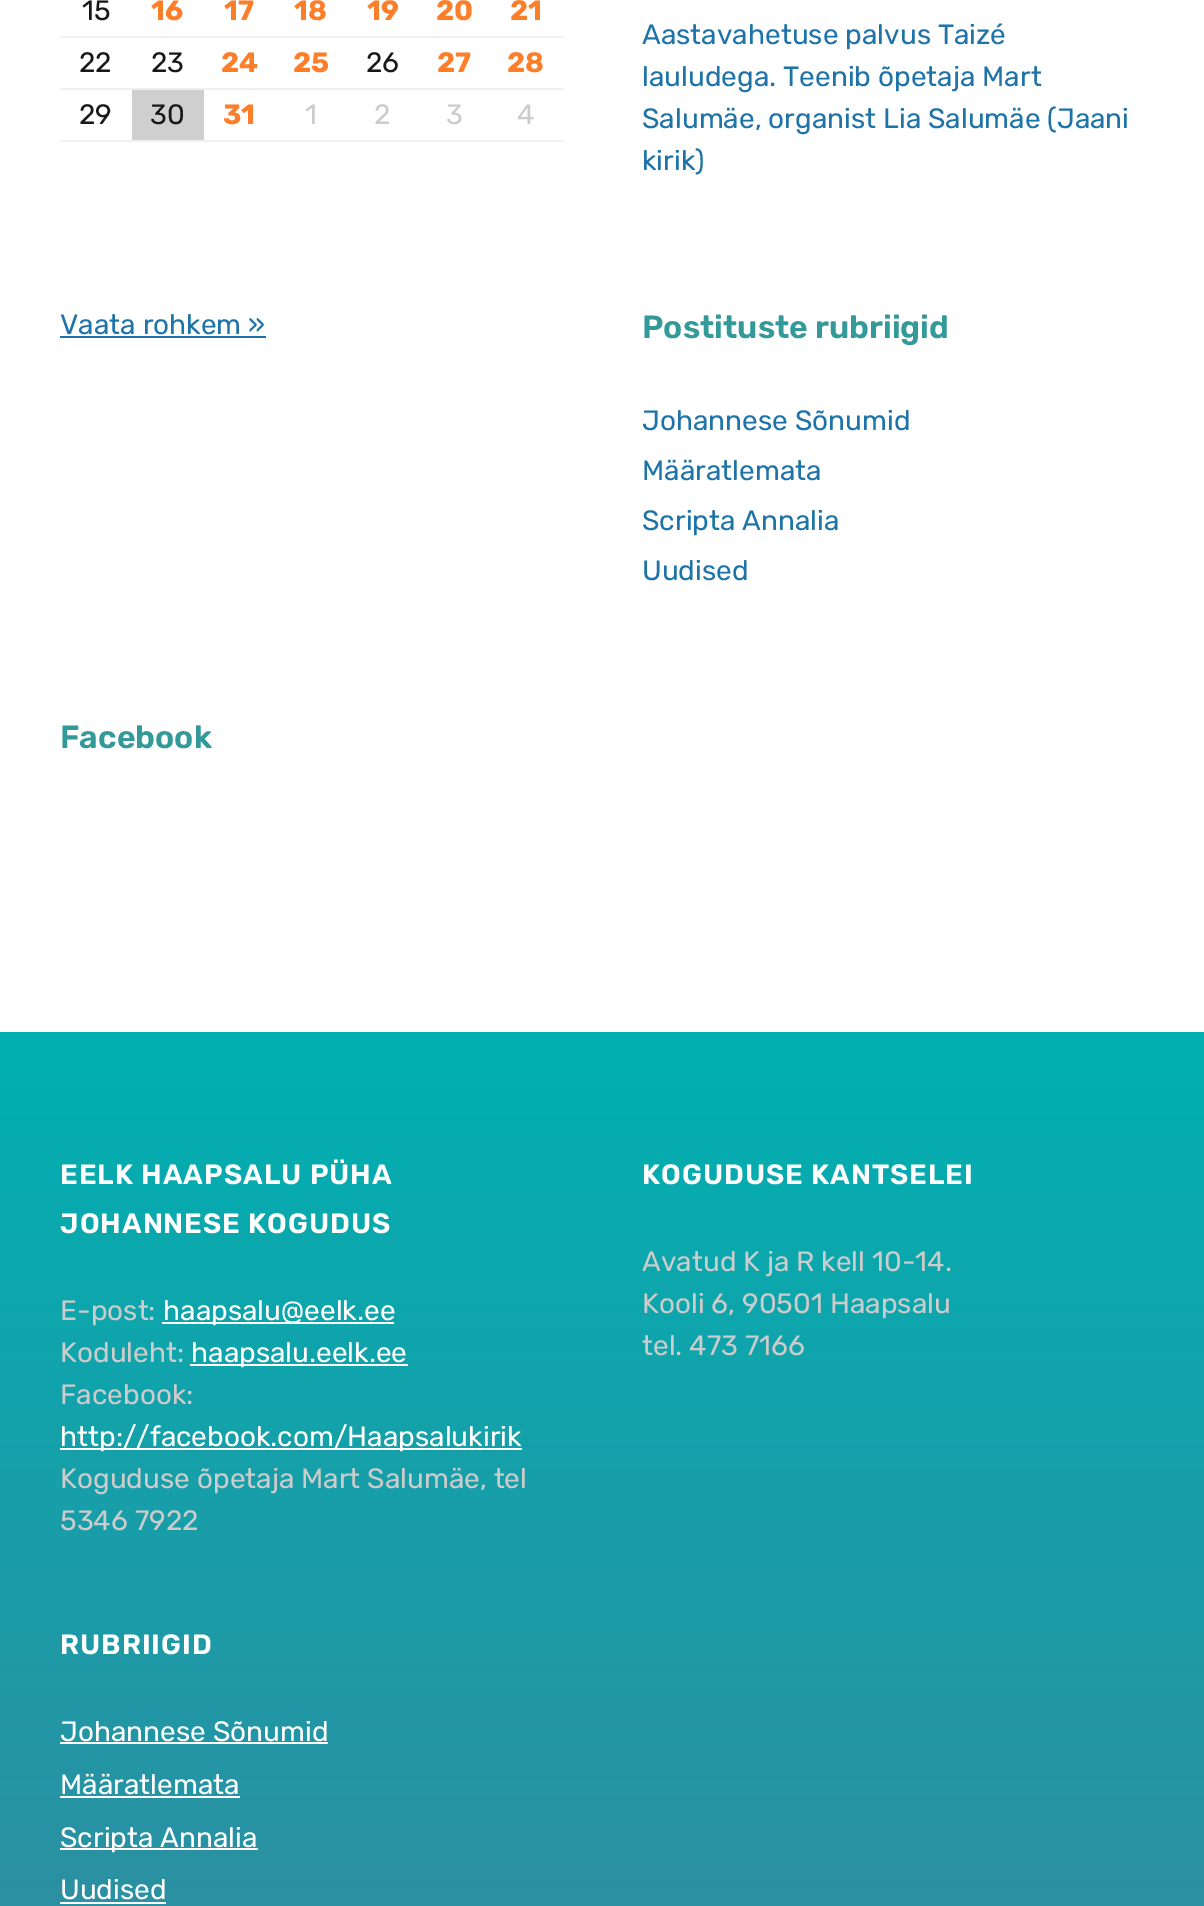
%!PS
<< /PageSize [1204 1906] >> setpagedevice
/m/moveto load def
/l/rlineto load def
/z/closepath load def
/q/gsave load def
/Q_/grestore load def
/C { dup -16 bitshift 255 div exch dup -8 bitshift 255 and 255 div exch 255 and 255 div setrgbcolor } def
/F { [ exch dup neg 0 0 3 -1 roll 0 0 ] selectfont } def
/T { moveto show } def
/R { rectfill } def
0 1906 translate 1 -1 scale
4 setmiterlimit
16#FFFFFF C
0 0 1204 1906 R
16#F0F0F0 C
60 36 504 2 R
/Rubik-Regular 28 F
16#181818 C
(15) 82 20 T
/Rubik-Bold 28 F
16#FD7E29 C
(16) 151 20 T
(17) 224 20 T
(18) 294 20 T
(19) 367 20 T
(20) 436 20 T
(21) 510 20 T
16#F0F0F0 C
60 88 504 2 R
/Rubik-Regular 28 F
16#181818 C
(22) 79 72 T
(23) 151 72 T
/Rubik-Bold 28 F
16#FD7E29 C
(24) 221 72 T
(25) 293 72 T
/Rubik-Regular 28 F
16#181818 C
(26) 366 72 T
/Rubik-Bold 28 F
16#FD7E29 C
(27) 437 72 T
(28) 507 72 T
16#F0F0F0 C
60 140 504 2 R
/Rubik-Regular 28 F
16#181818 C
(29) 79 124 T
16#CFCFCF C
132 90 72 50 R
16#181818 C
(30) 150 124 T
/Rubik-Bold 28 F
16#FD7E29 C
(31) 223 124 T
/Rubik-Regular 28 F
16#CCCCCC C
(1) 305 124 T
(2) 374 124 T
(3) 446 124 T
(4) 517 124 T
16#1E74A9 C
(Aastavahetuse palvus Taizé) 642 44 T
(lauludega. Teenib õpetaja Mart) 642 86 T
(Salumäe, organist Lia Salumäe \(Jaani) 642 128 T
(kirik\)) 642 170 T
(Vaata rohkem ») 60 334 T
60 336 206 2 R
/Rubik-SemiBold 32 F
16#339999 C
(Postituste rubriigid) 642 338 T
/Rubik-Regular 28 F
16#1E74A9 C
(Johannese Sõnumid) 642 430 T
(Määratlemata) 642 480 T
(Scripta Annalia) 642 530 T
(Uudised) 642 580 T
/Rubik-SemiBold 32 F
16#339999 C
(Facebook) 60 748 T
q 0 1032 m 1204 0 l 0 874 l -1204 0 l z clip newpath
<< /ShadingType 2 /ColorSpace /DeviceRGB /Coords [602 1032 602 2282] /Extend [true true] /Function << /FunctionType 2 /Domain [0 1] /C0 [0 .69 .694] /C1 [.243 .51 .612] /N 1 >> >> shfill Q_
/Rubik-SemiBold 28 F
16#FFFFFF C
60 1184 m 1 0 (EELK HAAPSALU PÜHA) ashow
60 1233 m 1 0 (JOHANNESE KOGUDUS) ashow
/Rubik-Regular 28 F
16#CCCCCC C
(E-post:) 60 1320 T
16#FFFFFF C
162 1322 232 2 R
(haapsalu@eelk.ee) 163 1320 T
16#CCCCCC C
(Koduleht:) 60 1362 T
16#FFFFFF C
190 1364 218 2 R
(haapsalu.eelk.ee) 191 1362 T
16#CCCCCC C
(Facebook:) 60 1404 T
16#FFFFFF C
60 1448 462 2 R
(http://facebook.com/Haapsalukirik) 60 1446 T
16#CCCCCC C
(Koguduse õpetaja Mart Salumäe, tel) 60 1488 T
(5346 7922) 60 1530 T
/Rubik-SemiBold 28 F
16#FFFFFF C
642 1184 m 1 0 (KOGUDUSE KANTSELEI) ashow
/Rubik-Regular 28 F
16#CCCCCC C
(Avatud K ja R kell 10-14.) 642 1271 T
(Kooli 6, 90501 Haapsalu) 642 1313 T
(tel. 473 7166) 642 1355 T
/Rubik-SemiBold 28 F
16#FFFFFF C
60 1654 m 1 0 (RUBRIIGID) ashow
/Rubik-Regular 28 F
(Johannese Sõnumid) 60 1741 T
60 1742 268 2 R
(Määratlemata) 60 1794 T
60 1796 180 2 R
60 1848 198 2 R
(Scripta Annalia) 60 1847 T
(Uudised) 60 1899 T
60 1902 106 2 R
showpage
